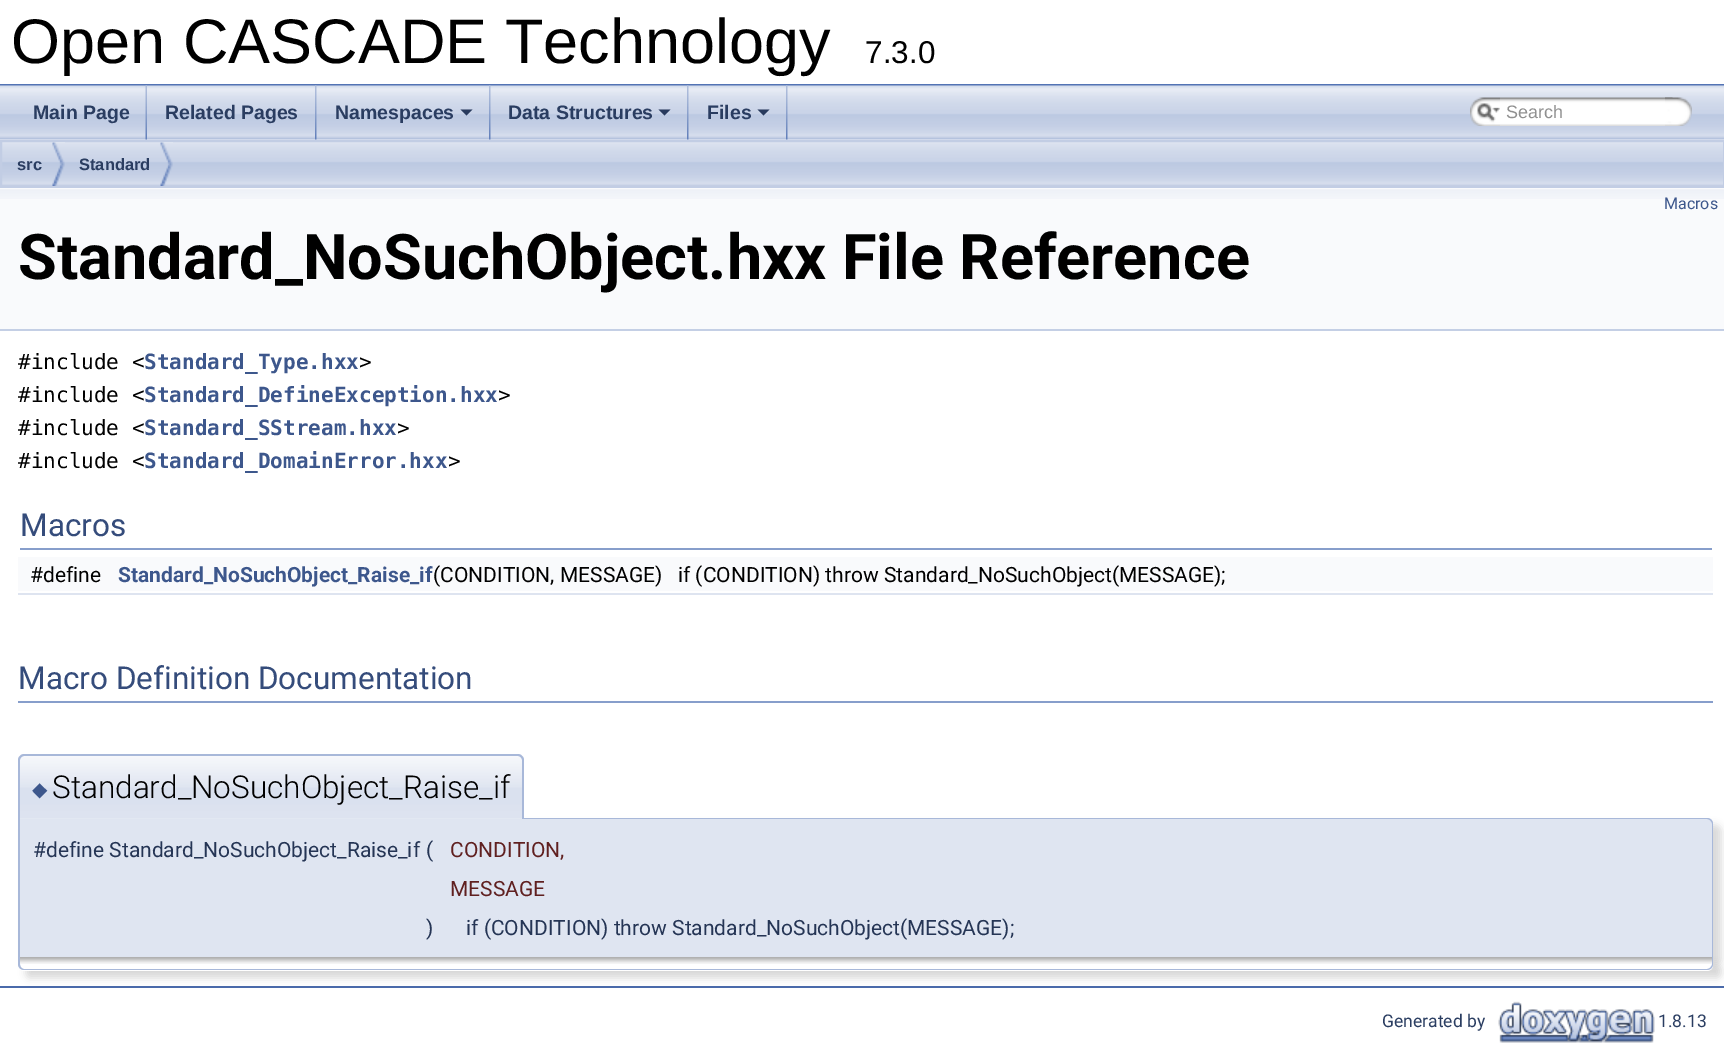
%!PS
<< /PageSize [1724 1046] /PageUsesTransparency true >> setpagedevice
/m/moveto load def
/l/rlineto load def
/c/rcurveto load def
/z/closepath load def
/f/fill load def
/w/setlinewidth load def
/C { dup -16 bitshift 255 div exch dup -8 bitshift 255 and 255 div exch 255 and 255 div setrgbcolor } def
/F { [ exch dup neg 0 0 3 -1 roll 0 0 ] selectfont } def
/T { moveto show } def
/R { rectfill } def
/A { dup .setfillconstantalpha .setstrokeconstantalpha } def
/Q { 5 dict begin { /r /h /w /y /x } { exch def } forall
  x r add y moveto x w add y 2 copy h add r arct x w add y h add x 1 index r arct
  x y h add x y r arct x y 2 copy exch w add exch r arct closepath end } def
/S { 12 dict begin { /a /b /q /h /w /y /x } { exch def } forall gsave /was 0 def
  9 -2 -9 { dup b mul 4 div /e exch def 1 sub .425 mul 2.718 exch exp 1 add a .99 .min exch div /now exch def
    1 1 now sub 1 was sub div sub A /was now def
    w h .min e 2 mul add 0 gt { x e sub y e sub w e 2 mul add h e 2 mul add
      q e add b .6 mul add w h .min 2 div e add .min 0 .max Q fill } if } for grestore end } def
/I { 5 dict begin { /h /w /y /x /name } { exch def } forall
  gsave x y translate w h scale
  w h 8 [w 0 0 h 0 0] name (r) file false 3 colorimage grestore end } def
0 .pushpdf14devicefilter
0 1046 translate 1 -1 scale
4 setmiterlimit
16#FFFFFF C
0 0 1724 1046 R
16#5373B4 C
0 84 1724 2 R
/LiberationSans-Regular 63 F
16#000000 C
(Open CASCADE Technology) 11 63 T
/LiberationSans-Regular 31.5 F
(7.3.0) 865 63 T
(8.rgb) 0 139 1724 47 I
(1.rgb) 0 85 1724 55 I
(2.rgb) 145 85 2 55 I
/LiberationSans-Bold 19.5 F
16#2A3D61 C
(Main Page) 33 119 T
(3.rgb) 315 85 2 55 I
(Related Pages) 165 119 T
(3.rgb) 489 85 2 55 I
(Namespaces) 335 119 T
16#283A5D C
460.5 109.5 m 12 0 l -6 6 l z f
(3.rgb) 687 85 2 55 I
16#2A3D61 C
(Data Structures) 508 119 T
16#283A5D C
658.5 109.5 m 12 0 l -6 6 l z f
(3.rgb) 786 85 2 55 I
16#2A3D61 C
(Files) 707 119 T
16#283A5D C
757.5 109.5 m 12 0 l -6 6 l z f
(4.rgb) 1470 97 30 29 I
(5.rgb) 1477 103 23 19 I
(6.rgb) 1500 97 173 29 I
/LiberationSans-Regular 18 F
16#909090 C
(Search) 1506 118 T
(7.rgb) 1665 97 27 29 I
16#C2CDE4 C
2 w
1 141 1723 46 rectstroke
(9.rgb) 52 142 13 44 I
/LiberationSans-Bold 16.5 F
16#2A3D61 C
(src) 17 170 T
(9.rgb) 160 142 13 44 I
(Standard) 79 170 T
16#F9FAFC C
0 188 1724 141 R
(10.rgb) 0 189 1724 10 I
16#C4CFE5 C
0 329 1724 2 R
/Roboto-Regular 16 F
16#3D578C C
(Macros) 1664 209 T
/Roboto-Bold 63 F
16#000000 C
(Standard_NoSuchObject.hxx File Reference) 18 279 T
/DejaVuSansMono-Regular 21 F
(#include <) 18 369 T
/DejaVuSansMono-Bold 21 F
16#3D578C C
(Standard_Type.hxx) 144 369 T
/DejaVuSansMono-Regular 21 F
16#000000 C
(>) 359 369 T
(#include <) 18 402 T
/DejaVuSansMono-Bold 21 F
16#3D578C C
(Standard_DefineException.hxx) 144 402 T
/DejaVuSansMono-Regular 21 F
16#000000 C
(>) 498 402 T
(#include <) 18 435 T
/DejaVuSansMono-Bold 21 F
16#3D578C C
(Standard_SStream.hxx) 144 435 T
/DejaVuSansMono-Regular 21 F
16#000000 C
(>) 397 435 T
(#include <) 18 468 T
/DejaVuSansMono-Bold 21 F
16#3D578C C
(Standard_DomainError.hxx) 144 468 T
/DejaVuSansMono-Regular 21 F
16#000000 C
(>) 448 468 T
16#879ECB C
20 548 1692 2 R
/Roboto-Regular 31.5 F
16#354C7B C
(Macros) 20 536 T
16#F9FAFC C
18 557 1695 34 R
/Roboto-Regular 21 F
16#000000 C
(#define) 30 582 T
/Roboto-Bold 21 F
16#3D578C C
(Standard_NoSuchObject_Raise_if) 118 582 T
/Roboto-Regular 21 F
16#000000 C
(\(CONDITION, MESSAGE\)   if \(CONDITION\) throw Standard_NoSuchObject\(MESSAGE\);) 433 582 T
16#DEE4F0 C
18 593 1695 2 R
16#879ECB C
18 701 1695 2 R
/Roboto-Regular 31.5 F
16#354C7B C
(Macro Definition Documentation) 18 689 T
16#000000 C
26 825 1695 140 6 4 .15 S
16#DFE5F1 C
18 818 m 1689 0 l 3.5 0 6 2.5 6 6 c 0 133 l -1695 0 l z f
16#A8B8D9 C
18 818 m 1689 0 l 3 0 6 2 6 6 c 0 133 l -1695 0 l z 20 819 m 1687 0 l 2 0 5 2 5 5 c 0 133 l -1692 0 l z eofill
16#E2E8F2 C
24 755 m 494 0 l 3.5 0 6 2.5 6 6 c 0 58 l -506 0 l 0 -58 l 0 -3.5 2.5 -6 6 -6 c z f
(11.rgb) 18 756 506 62 I
16#A8B8D9 C
24 754 m 494 0 l 3 0 6 3 6 6 c 0 59 l -506 0 l 0 -59 l 0 -3 3 -6 6 -6 c z 24 756 m 494 0 l 2 0 4 2 4 4 c 0 59 l -502 0 l 0 -59 l 0 -2 2 -4 4 -4 c z eofill
/DejaVuSans-Regular 20 F
16#3D578C C
(◆) 32 796 T
/Roboto-Light 31.5 F
16#000000 C
(Standard_NoSuchObject_Raise_if) 52 798 T
/Roboto-Regular 21 F
16#253555 C
(#define Standard_NoSuchObject_Raise_if) 33 857 T
(\() 426 857 T
16#602020 C
(CONDITION,) 450 857 T
(MESSAGE) 450 896 T
16#253555 C
(\)) 426 935 T
(if \(CONDITION\) throw Standard_NoSuchObject\(MESSAGE\);) 466 935 T
16#000000 C
26 965 1695 13 6 4 .15 S
16#FFFFFF C
18 957 m 1695 0 l 0 8 l 0 3.5 -2.5 6 -6 6 c -1683 0 l -3.5 0 -6 -2.5 -6 -6 c z f
(12.rgb) 20 957 1692 7 I
16#A8B8D9 C
18 957 m 1695 0 l 0 7 l 0 4 -3 6 -6 6 c -1683 0 l -3 0 -6 -2 -6 -6 c z 20 957 m 1692 0 l 0 7 l 0 3 -3 5 -5 5 c -1683 0 l -2 0 -4 -2 -4 -5 c z eofill
16#4A6AAA C
0 986 1724 2 R
/Roboto-Regular 17.5 F
16#2A3D61 C
(Generated by) 1382 1027 T
(13.rgb) 1498 1001 157 42 I
(1.8.13) 1658 1027 T
.poppdf14devicefilter showpage
